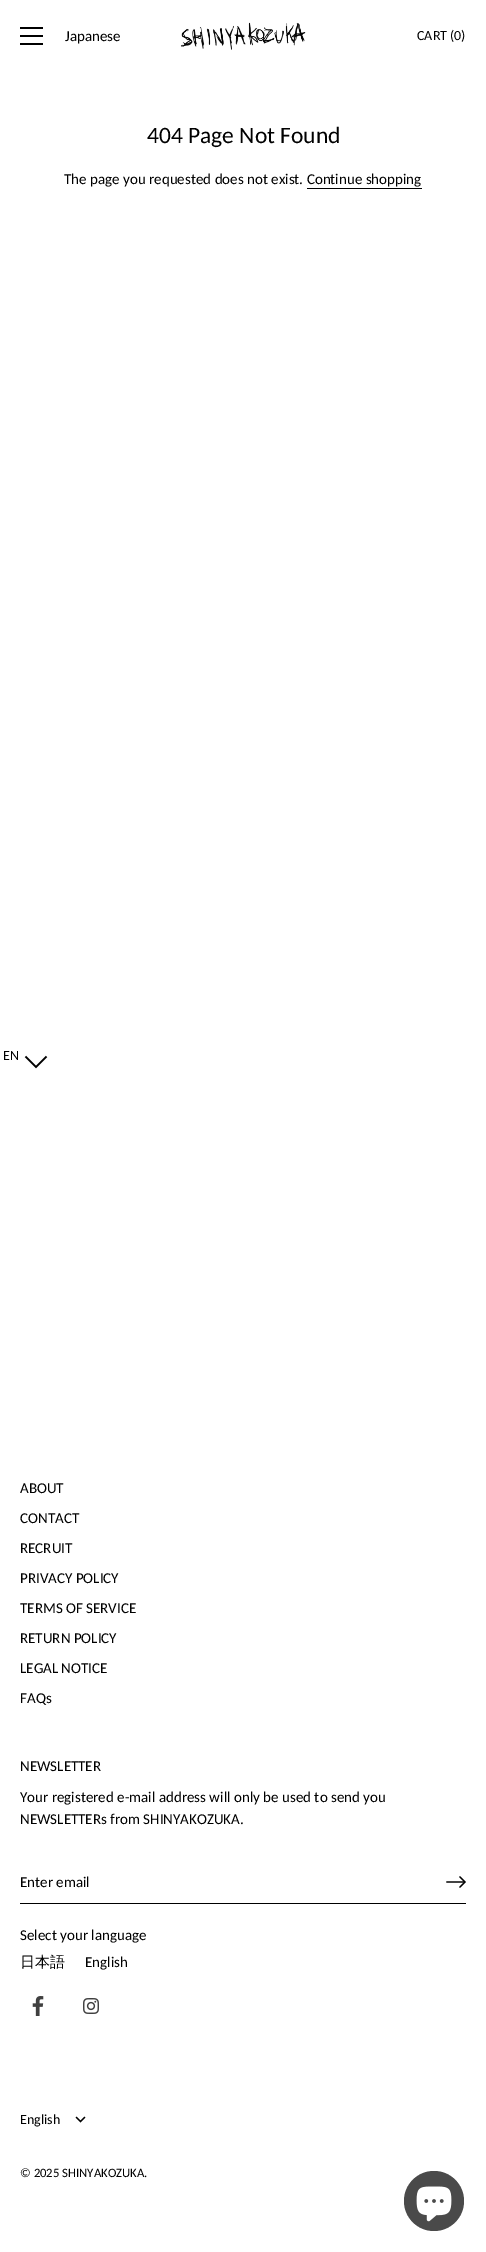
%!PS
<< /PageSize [486 2252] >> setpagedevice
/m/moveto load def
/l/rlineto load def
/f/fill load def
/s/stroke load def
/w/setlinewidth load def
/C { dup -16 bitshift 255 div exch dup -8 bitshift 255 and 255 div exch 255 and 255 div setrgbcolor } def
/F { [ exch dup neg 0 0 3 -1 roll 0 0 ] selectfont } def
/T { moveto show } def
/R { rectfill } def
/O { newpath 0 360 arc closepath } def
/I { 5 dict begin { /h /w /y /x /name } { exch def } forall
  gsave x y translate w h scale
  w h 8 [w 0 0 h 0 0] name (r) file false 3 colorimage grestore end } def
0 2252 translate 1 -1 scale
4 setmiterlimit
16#FFFFFF C
0 0 486 2252 R
16#000000 C
20 27 23 2 R
20 35 23 2 R
20 43 23 2 R
/Carlito-Regular 15 F
(Japanese) 65 41 T
(1.rgb) 180 22 126 28 I
/Carlito-Regular 14 F
(CART \(0\)) 417 40 T
/Carlito-Regular 23.5 F
(404 Page Not Found) 147 143 T
/Carlito-Regular 15 F
(The page you requested does not exist. Continue shopping) 64 184 T
307 188 115 1 R
/Carlito-Regular 14 F
(EN) 3 1060 T
1.7 w
25.5 1056.5 m 10.5 10.5 l 10.5 -10.5 l s
/Carlito-Regular 15 F
(ABOUT) 20 1493 T
(CONTACT) 20 1523 T
(RECRUIT) 20 1553 T
(PRIVACY POLICY) 20 1583 T
(TERMS OF SERVICE) 20 1613 T
(RETURN POLICY) 20 1643 T
(LEGAL NOTICE) 20 1673 T
(FAQs) 20 1703 T
(NEWSLETTER) 20 1771 T
(Your registered e-mail address will only be used to send you) 20 1802 T
(NEWSLETTERs from SHINYAKOZUKA.) 20 1824 T
20 1903 446 1 R
(Enter email) 20 1887 T
1.3 w
1 setlinecap
460 1887 m 5 -5 l -5 -5 l s
1 setlinejoin
464 1882 m -17 0 l s
(Select your language) 20 1940 T
/WenQuanYiZenHei-Medium 15 F
(日本語) 20 1967 T
/Carlito-Regular 15 F
(English) 85 1967 T
(2.rgb) 32 1996 12 20 I
(3.rgb) 83 1998 16 16 I
/Carlito-Regular 14 F
(English) 20 2124 T
1.4 w
0 setlinejoin
76.5 2117.5 m 4 4 l 4 -4 l s
/Carlito-Regular 12.75 F
(© 2025 SHINYAKOZUKA.) 20 2177 T
16#4A4A4A C
434 2201 30 O f
(4.rgb) 416 2186 36 36 I
showpage
